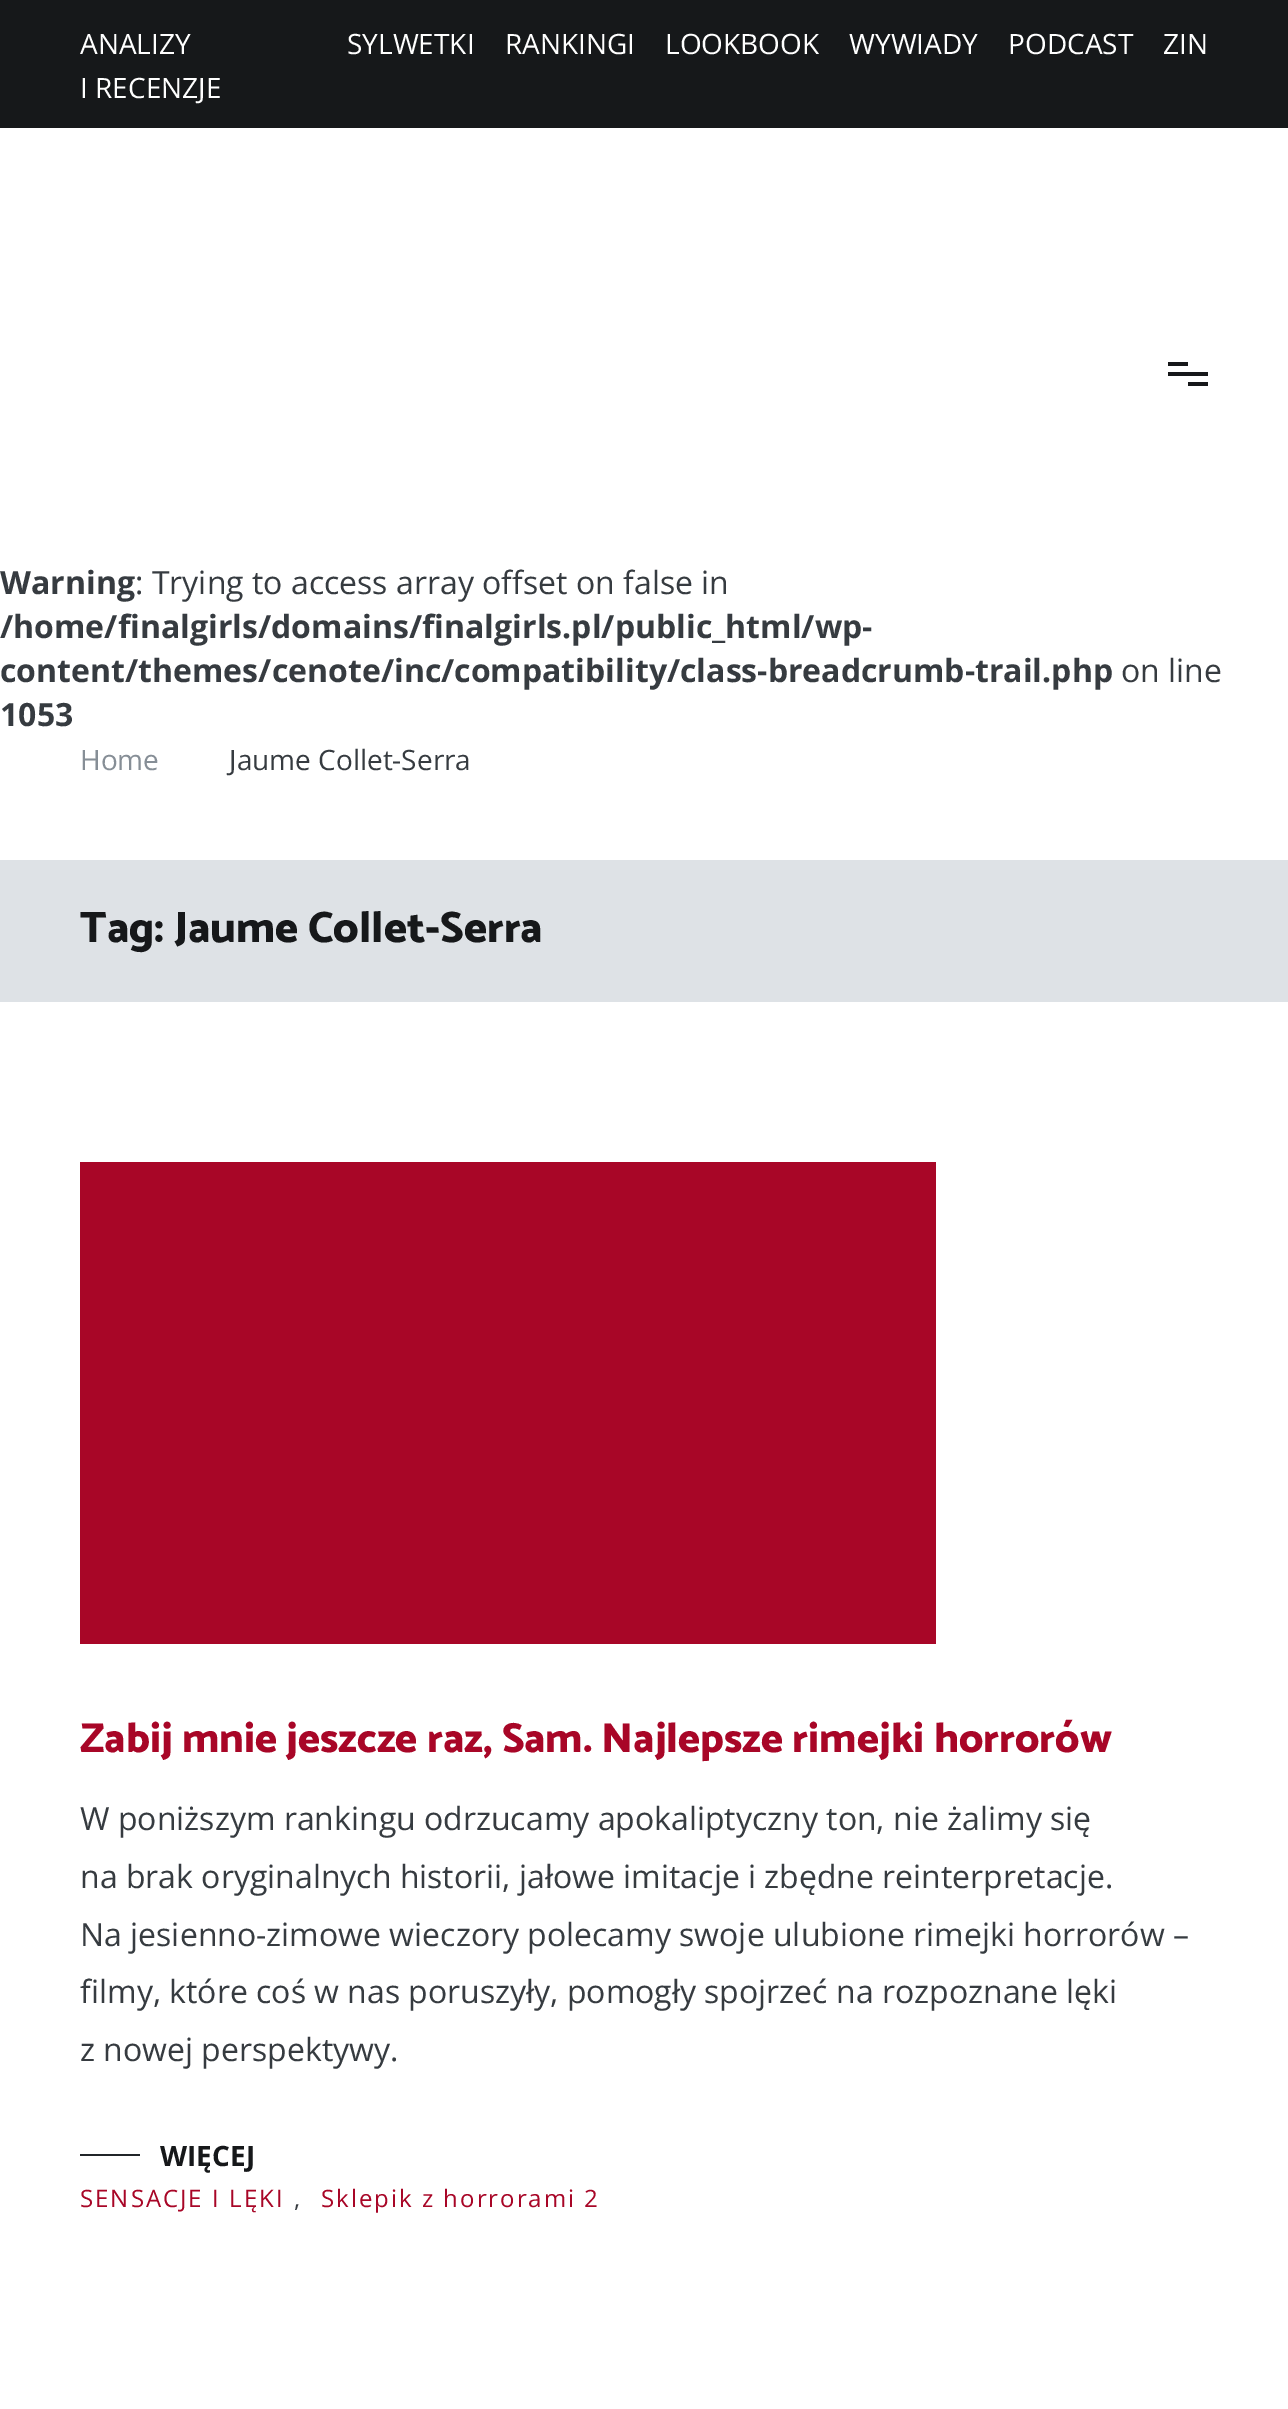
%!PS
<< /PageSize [1288 2409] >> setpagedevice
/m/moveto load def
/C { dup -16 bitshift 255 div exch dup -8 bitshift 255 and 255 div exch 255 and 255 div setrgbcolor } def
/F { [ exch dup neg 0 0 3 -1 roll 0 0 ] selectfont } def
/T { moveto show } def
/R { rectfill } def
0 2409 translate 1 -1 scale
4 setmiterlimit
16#FFFFFF C
0 0 1288 2409 R
16#16181A C
0 0 1288 128 R
/OpenSans-Regular 28 F
16#FFFFFF C
(ANALIZY) 80 54 T
(I RECENZJE) 80 98 T
(SYLWETKI) 347 54 T
(RANKINGI) 505 54 T
(LOOKBOOK) 665 54 T
(WYWIADY) 849 54 T
(PODCAST) 1008 54 T
(ZIN) 1163 54 T
16#16181A C
1168 362 20 4 R
1168 372 40 4 R
1188 382 20 4 R
/OpenSans-Bold 32 F
16#363B40 C
(Warning) 0 594 T
/OpenSans-Regular 32 F
(: Trying to access array offset on false in) 135 594 T
/OpenSans-Bold 32 F
(/home/finalgirls/domains/finalgirls.pl/public_html/wp-) 0 638 T
(content/themes/cenote/inc/compatibility/class-breadcrumb-trail.php) 0 682 T
/OpenSans-Regular 32 F
(on line) 1121 682 T
/OpenSans-Bold 32 F
(1053) 0 726 T
/OpenSans-Regular 28 F
16#868E96 C
(Home) 80 770 T
16#363B40 C
(Jaume Collet-Serra) 229 770 T
16#DEE2E6 C
0 860 1288 142 R
/Catamaran-ExtraBold 44 F
16#16181A C
(Tag: Jaume Collet-Serra) 80 942 T
16#A80627 C
80 1162 856 482 R
/Catamaran-ExtraBold 42 F
(Zabij mnie jeszcze raz, Sam. Najlepsze rimejki horrorów) 80 1752 T
/OpenSans-Regular 32 F
16#363B40 C
(W poniższym rankingu odrzucamy apokaliptyczny ton, nie żalimy się) 80 1830 T
(na brak oryginalnych historii, jałowe imitacje i zbędne reinterpretacje.) 80 1888 T
(Na jesienno-zimowe wieczory polecamy swoje ulubione rimejki horrorów –) 80 1946 T
(filmy, które coś w nas poruszyły, pomogły spojrzeć na rozpoznane lęki) 80 2003 T
(z nowej perspektywy.) 80 2061 T
16#212529 C
80 2154 60 2 R
/OpenSans-Bold 28 F
16#16181A C
(WIĘCEJ) 160 2166 T
/OpenSans-Regular 24 F
16#A80627 C
80 2207 m 2 0 (SENSACJE I LĘKI) ashow
16#363B40 C
294 2207 m 2 0 (,) ashow
16#A80627 C
321 2207 m 2 0 (Sklepik z horrorami 2) ashow
showpage
